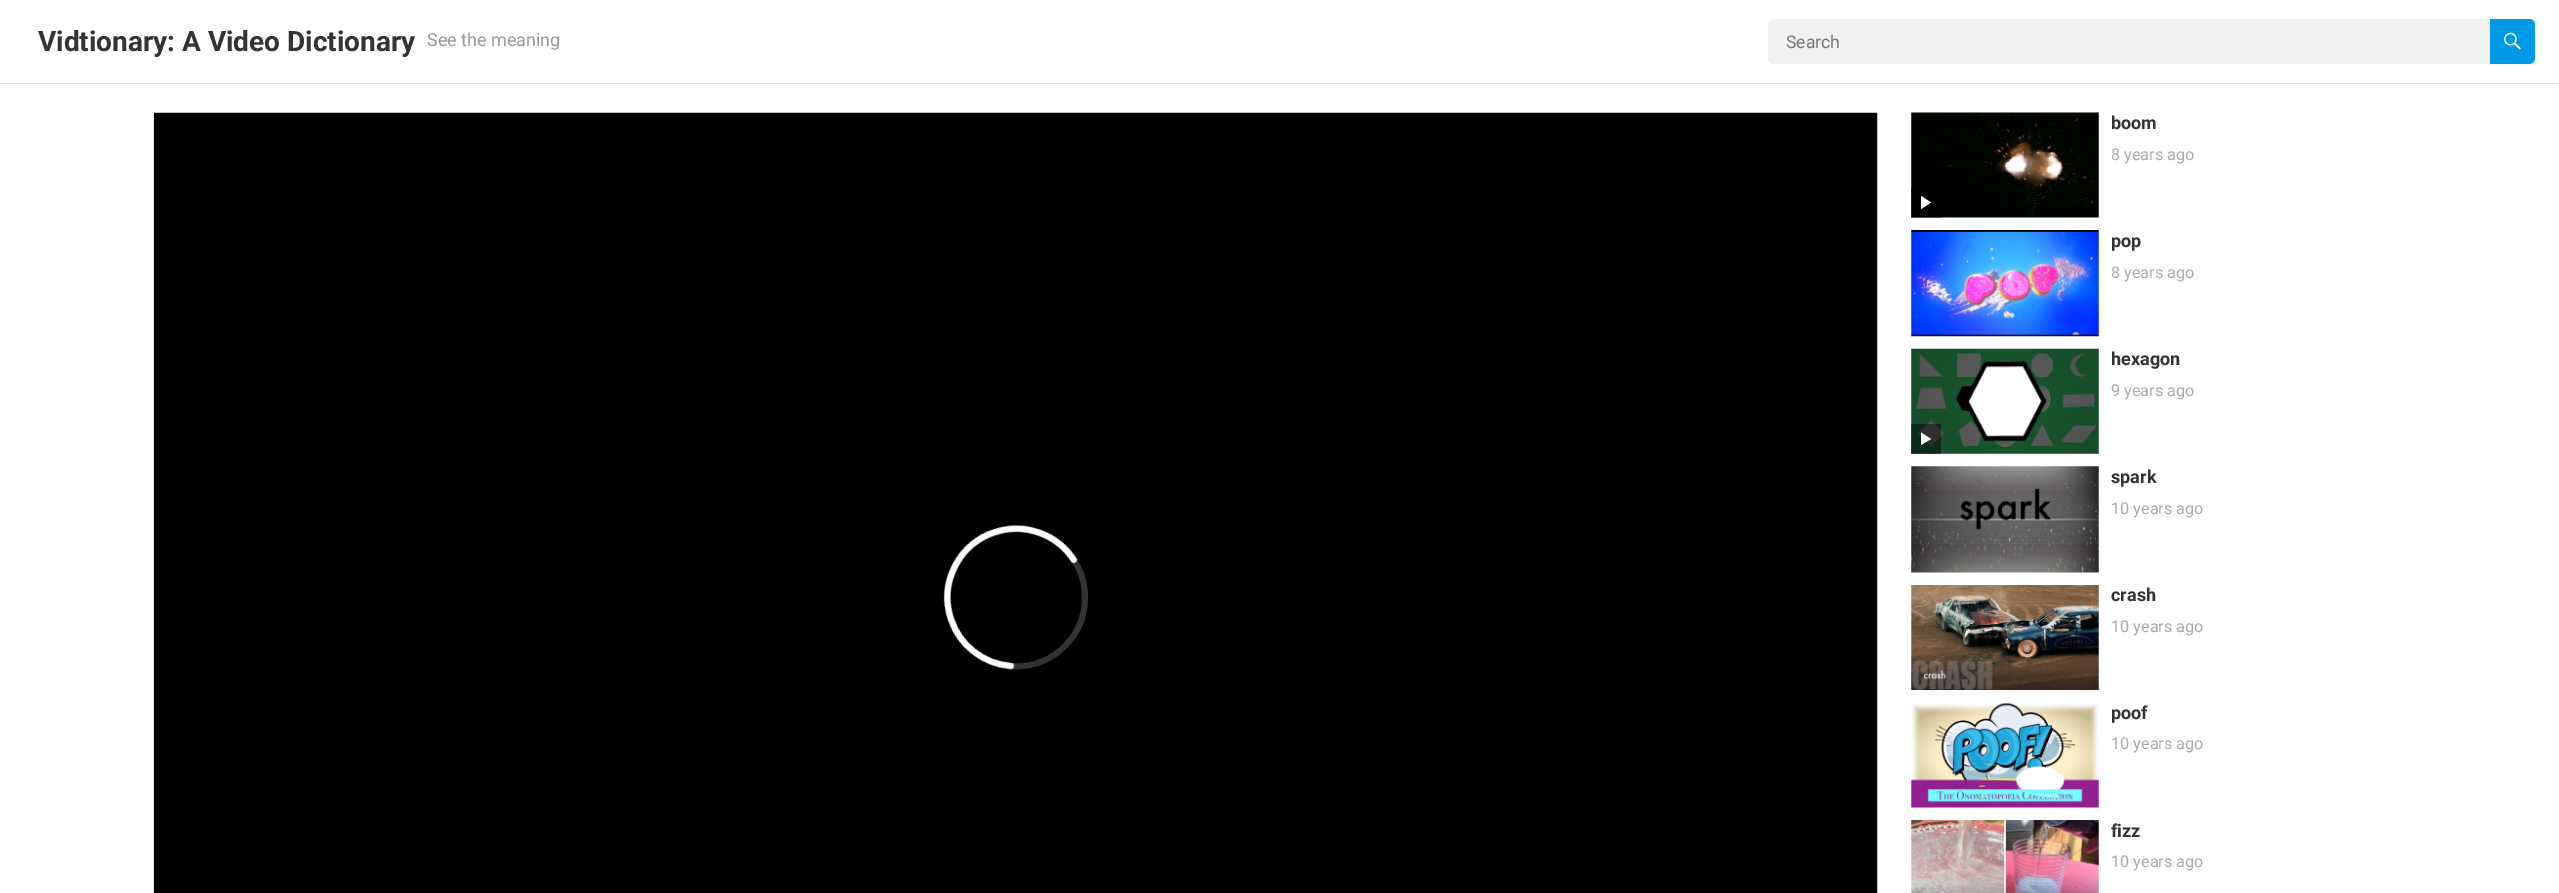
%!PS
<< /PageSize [2559 893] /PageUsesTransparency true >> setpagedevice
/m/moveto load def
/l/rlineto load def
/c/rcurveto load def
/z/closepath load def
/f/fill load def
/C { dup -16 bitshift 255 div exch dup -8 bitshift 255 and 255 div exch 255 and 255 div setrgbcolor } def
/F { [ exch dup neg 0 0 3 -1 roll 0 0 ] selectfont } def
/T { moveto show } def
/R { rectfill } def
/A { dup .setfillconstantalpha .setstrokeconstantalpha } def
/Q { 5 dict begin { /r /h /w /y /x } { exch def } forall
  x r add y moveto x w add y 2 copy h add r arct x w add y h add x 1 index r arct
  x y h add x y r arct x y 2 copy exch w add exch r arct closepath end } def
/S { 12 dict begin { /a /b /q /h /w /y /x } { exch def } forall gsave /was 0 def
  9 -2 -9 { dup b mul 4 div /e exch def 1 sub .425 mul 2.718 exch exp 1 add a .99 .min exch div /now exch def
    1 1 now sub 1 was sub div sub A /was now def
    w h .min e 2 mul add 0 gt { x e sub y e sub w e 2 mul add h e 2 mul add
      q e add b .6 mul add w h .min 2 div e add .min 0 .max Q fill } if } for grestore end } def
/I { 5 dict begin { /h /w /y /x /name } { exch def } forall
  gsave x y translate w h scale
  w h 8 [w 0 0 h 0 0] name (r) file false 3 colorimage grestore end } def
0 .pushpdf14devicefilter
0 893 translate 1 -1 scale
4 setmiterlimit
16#FFFFFF C
0 0 2559 893 R
16#000000 C
0 0 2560 83 0 .5 .4 S
16#FFFFFF C
0 0 2559 83 R
/Roboto-Bold 28 F
16#333333 C
(Vidtionary: A Video Dictionary) 38 51 T
/Roboto-Regular 18 F
16#999999 C
(See the meaning) 427 46 T
16#F1F1F1 C
1768 19 767 45 6 Q f
/Roboto-Regular 17.5 F
16#757575 C
(Search) 1786 48 T
16#0099E5 C
2490 19 m 39 0 l 3.5 0 6 2.5 6 6 c 0 33 l 0 3.5 -2.5 6 -6 6 c -39 0 l z f
(1.rgb) 2504 32 17 18 I
(2.rgb) 153 112 1725 781 I
(3.rgb) 1911 112 188 106 I
0.45 A
16#000000 C
1911 188 30 30 R
1 A
16#FFFFFF C
1921 196 m 10 6.5 l -10 6.5 l z f
/Roboto-Bold 18 F
16#333333 C
(boom) 2111 129 T
/Roboto-Regular 16.25 F
16#AAAAAA C
(8 years ago) 2111 160 T
(4.rgb) 1911 230 188 107 I
/Roboto-Bold 18 F
16#333333 C
(pop) 2111 247 T
/Roboto-Regular 16.25 F
16#AAAAAA C
(8 years ago) 2111 278 T
(5.rgb) 1911 348 188 106 I
0.45 A
16#000000 C
1911 424 30 30 R
1 A
16#FFFFFF C
1921 432.5 m 10 6.5 l -10 6 l z f
/Roboto-Bold 18 F
16#333333 C
(hexagon) 2111 365 T
/Roboto-Regular 16.25 F
16#AAAAAA C
(9 years ago) 2111 396 T
(6.rgb) 1911 466 188 107 I
/Roboto-Bold 18 F
16#333333 C
(spark) 2111 483 T
/Roboto-Regular 16.25 F
16#AAAAAA C
(10 years ago) 2111 514 T
(7.rgb) 1911 585 188 105 I
/Roboto-Bold 18 F
16#333333 C
(crash) 2111 601 T
/Roboto-Regular 16.25 F
16#AAAAAA C
(10 years ago) 2111 632 T
(8.rgb) 1911 702 188 106 I
/Roboto-Bold 18 F
16#333333 C
(poof) 2111 719 T
/Roboto-Regular 16.25 F
16#AAAAAA C
(10 years ago) 2111 749 T
(9.rgb) 1911 820 188 73 I
/Roboto-Bold 18 F
16#333333 C
(fizz) 2111 837 T
/Roboto-Regular 16.25 F
16#AAAAAA C
(10 years ago) 2111 867 T
.poppdf14devicefilter showpage
